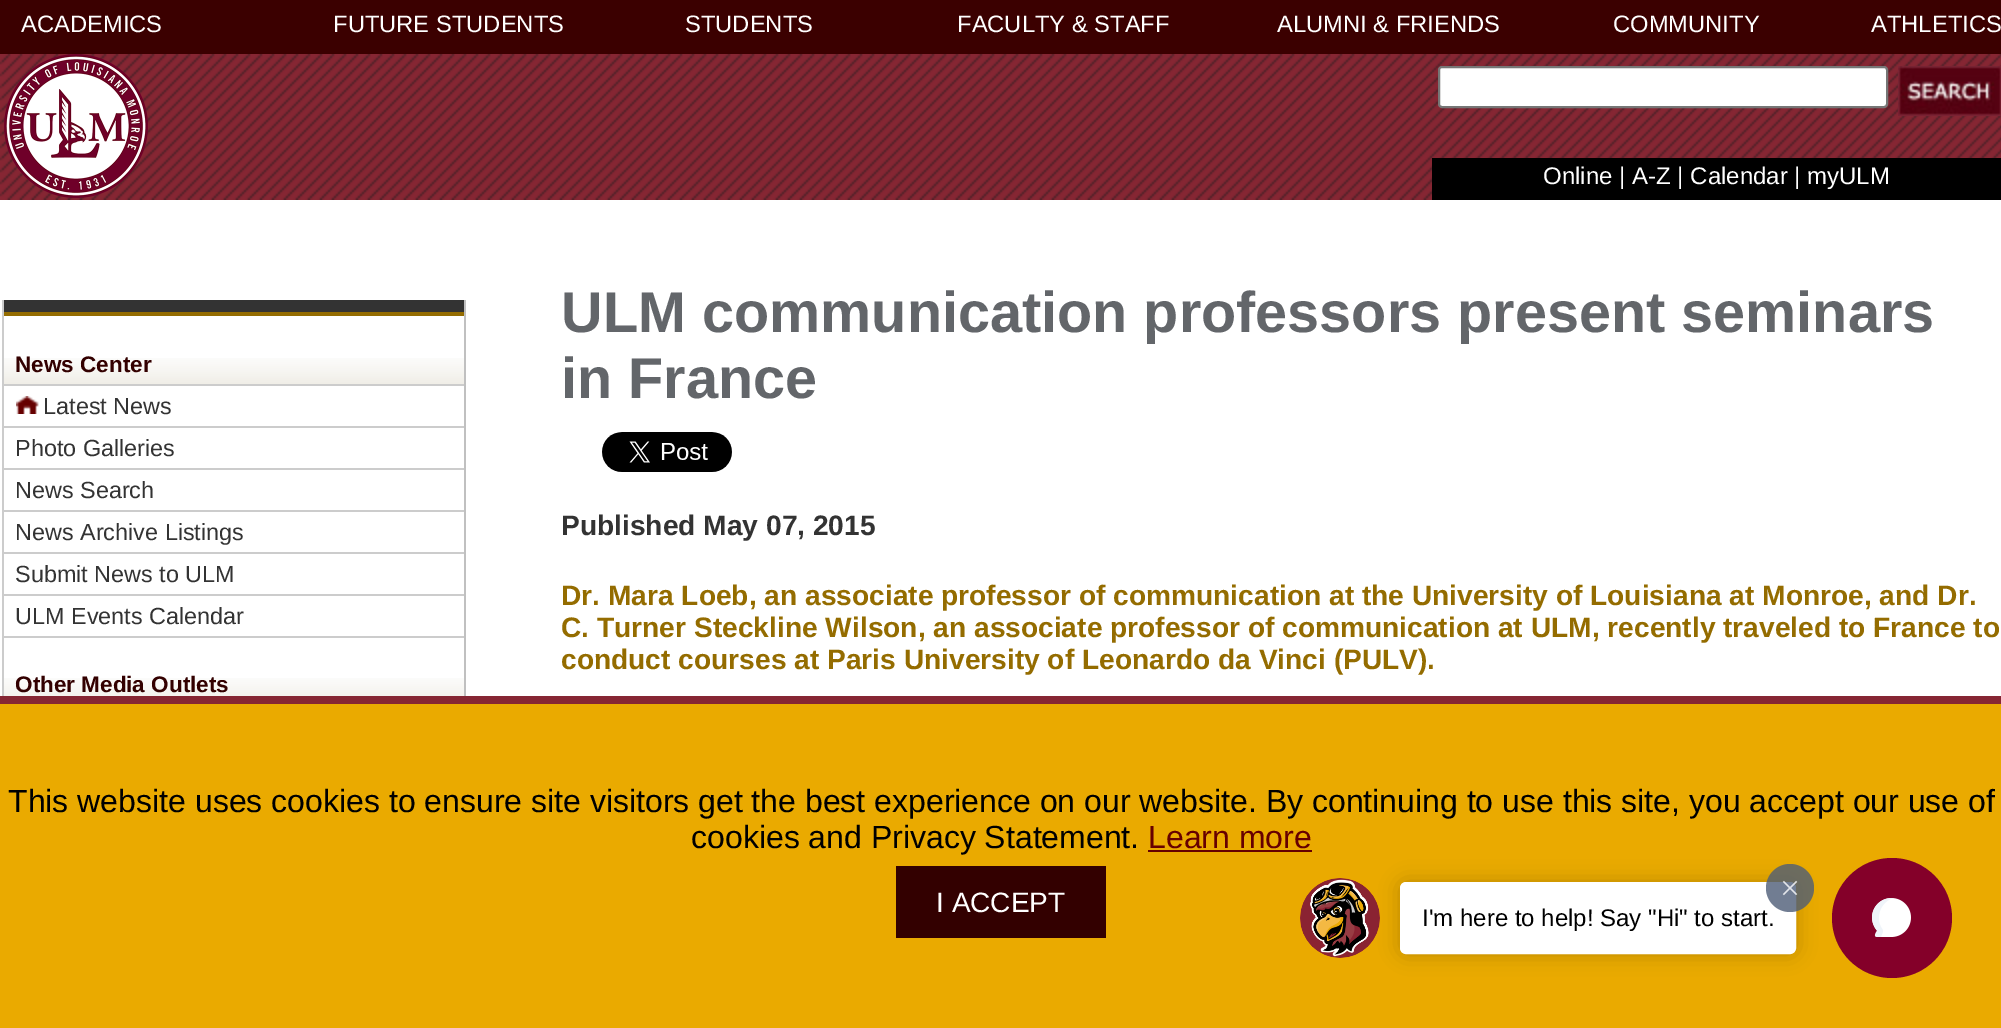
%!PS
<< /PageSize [2001 1028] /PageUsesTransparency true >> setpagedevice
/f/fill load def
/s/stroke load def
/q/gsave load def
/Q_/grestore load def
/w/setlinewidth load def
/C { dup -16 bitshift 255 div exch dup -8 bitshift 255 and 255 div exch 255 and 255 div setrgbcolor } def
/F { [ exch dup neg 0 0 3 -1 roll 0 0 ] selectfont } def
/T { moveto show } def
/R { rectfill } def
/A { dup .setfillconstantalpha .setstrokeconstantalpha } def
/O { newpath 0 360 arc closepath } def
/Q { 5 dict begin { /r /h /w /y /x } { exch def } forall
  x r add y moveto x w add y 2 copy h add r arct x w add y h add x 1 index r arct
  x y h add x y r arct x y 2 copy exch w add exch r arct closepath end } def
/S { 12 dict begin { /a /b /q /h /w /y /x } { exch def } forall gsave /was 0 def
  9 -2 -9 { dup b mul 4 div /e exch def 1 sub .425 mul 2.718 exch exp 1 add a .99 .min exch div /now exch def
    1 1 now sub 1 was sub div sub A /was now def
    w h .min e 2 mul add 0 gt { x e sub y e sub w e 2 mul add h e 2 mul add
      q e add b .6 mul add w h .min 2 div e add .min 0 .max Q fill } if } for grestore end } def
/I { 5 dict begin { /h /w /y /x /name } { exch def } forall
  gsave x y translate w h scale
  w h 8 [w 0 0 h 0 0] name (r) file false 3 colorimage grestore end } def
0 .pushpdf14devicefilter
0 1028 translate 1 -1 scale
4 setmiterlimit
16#FFFFFF C
0 0 2001 1028 R
16#3B0000 C
0 0 2001 54 R
/LiberationSans-Regular 23.75 F
16#FFFFFF C
(ACADEMICS) 21 32 T
(FUTURE STUDENTS) 333 32 T
(STUDENTS) 685 32 T
(FACULTY & STAFF) 957 32 T
(ALUMNI & FRIENDS) 1277 32 T
(COMMUNITY) 1613 32 T
(ATHLETICS) 1871 32 T
16#862633 C
0 54 2001 146 R
(1.rgb) 0 54 2001 146 I
(2.rgb) 4 54 144 144 I
16#FFFFFF C
1439 67 448 40 3 Q q f Q_
16#767676 C
2 w
s
(3.rgb) 1898 66 103 50 I
16#000000 C
1432 158 569 42 R
/LiberationSans-Regular 24 F
16#FFFFFF C
(Online | A-Z | Calendar | myULM) 1543 184 T
/LiberationSans-Bold 57.6 F
16#63666A C
(ULM communication professors present seminars) 561 332 T
(in France) 561 398 T
16#333333 C
4 300 460 12 R
16#C0C0C0 C
464 300 2 396 R
16#CCCCCC C
2 300 2 396 R
16#946C00 C
4 312 460 4 R
(4.rgb) 4 358 460 26 I
16#CCCCCC C
4 384 460 2 R
/LiberationSans-Bold 22.5 F
16#330000 C
(News Center) 15 372 T
16#CCCCCC C
4 426 460 2 R
(5.rgb) 16 396 23 18 I
/LiberationSans-Regular 23.4 F
16#333333 C
(Latest News) 43 414 T
16#CCCCCC C
4 468 460 2 R
16#333333 C
(Photo Galleries) 15 456 T
16#CCCCCC C
4 510 460 2 R
16#333333 C
(News Search) 15 498 T
16#CCCCCC C
4 552 460 2 R
16#333333 C
(News Archive Listings) 15 540 T
16#CCCCCC C
4 594 460 2 R
16#333333 C
(Submit News to ULM) 15 582 T
16#CCCCCC C
4 636 460 2 R
16#333333 C
(ULM Events Calendar) 15 624 T
(6.rgb) 4 678 460 18 I
/LiberationSans-Bold 22.5 F
16#330000 C
(Other Media Outlets) 15 692 T
(7.rgb) 602 432 130 40 I
/LiberationSans-Bold 28.15 F
16#333333 C
(Published May 07, 2015) 561 535 T
16#946C00 C
(Dr. Mara Loeb, an associate professor of communication at the University of Louisiana at Monroe, and Dr.) 561 605 T
(C. Turner Steckline Wilson, an associate professor of communication at ULM, recently traveled to France to) 561 637 T
(conduct courses at Paris University of Leonardo da Vinci \(PULV\).) 561 669 T
16#EAAA00 C
0 704 2001 324 R
16#862633 C
0 696 2001 8 R
/LiberationSans-Regular 32 F
16#000000 C
(This website uses cookies to ensure site visitors get the best experience on our website. By continuing to use this site, you accept our use of) 8 812 T
(cookies and Privacy Statement.) 691 848 T
16#660000 C
(Learn more) 1148 848 T
1148 850 164 2 R
16#330000 C
896 866 210 72 R
/LiberationSans-Regular 28 F
16#FFFFFF C
(I ACCEPT) 936 912 T
(8.rgb) 1300 878 80 80 I
16#000000 C
1400 882 396 72 6 10 .2 S
16#FFFFFF C
1401 883 394 70 5 Q q f Q_
s
/LiberationSans-Regular 24 F
16#000000 C
(I'm here to help! Say "Hi" to start.) 1422 926 T
0.8 A
16#4E5D77 C
1790 888 24 O f
1 A
(9.rgb) 1782 880 16 16 I
16#840029 C
1892 918 60 O f
(10.rgb) 1872 898 39 39 I
.poppdf14devicefilter showpage
